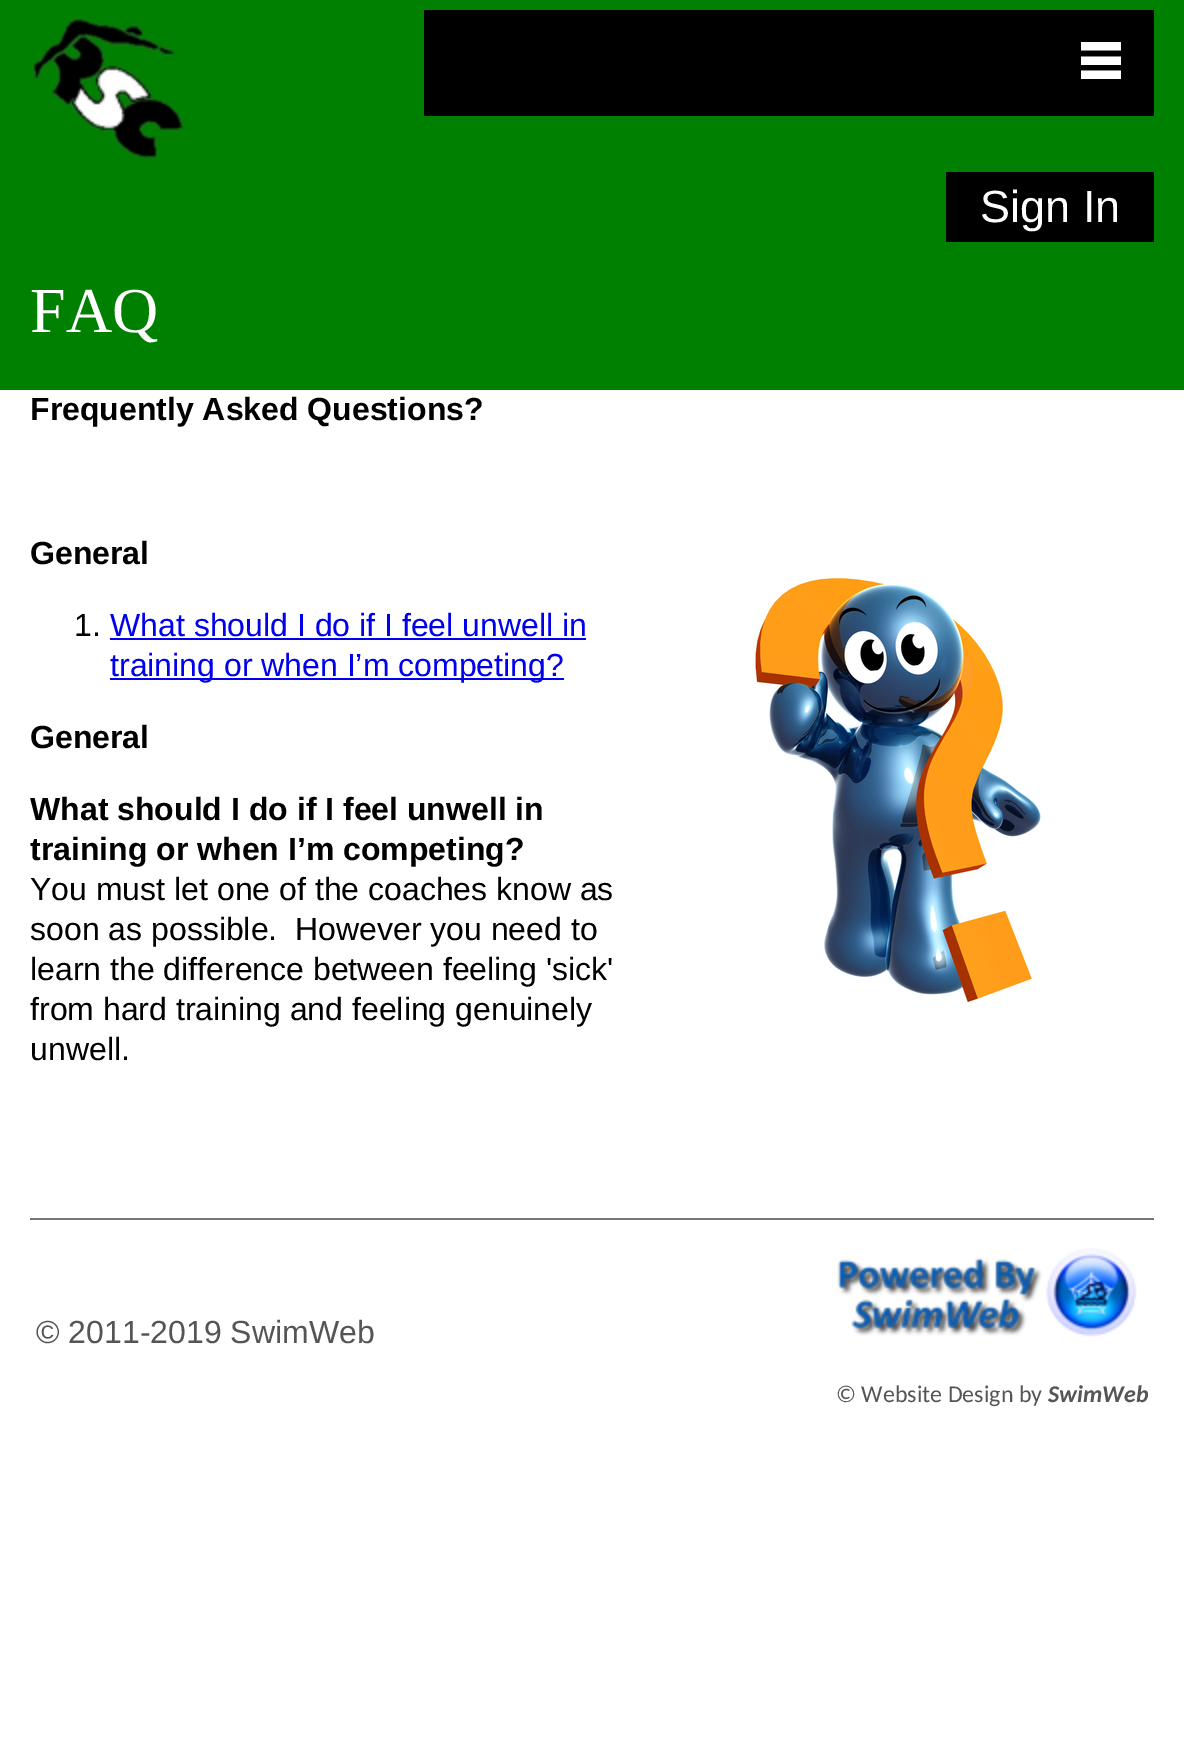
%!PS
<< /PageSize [1184 1742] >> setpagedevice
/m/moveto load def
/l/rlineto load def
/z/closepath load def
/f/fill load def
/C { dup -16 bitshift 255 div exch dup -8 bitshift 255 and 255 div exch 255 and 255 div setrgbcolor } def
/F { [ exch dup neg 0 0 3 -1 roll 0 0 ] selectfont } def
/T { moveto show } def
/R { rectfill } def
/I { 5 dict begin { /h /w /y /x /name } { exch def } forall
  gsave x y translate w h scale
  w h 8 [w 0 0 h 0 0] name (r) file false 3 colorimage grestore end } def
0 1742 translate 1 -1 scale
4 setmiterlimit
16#FFFFFF C
0 0 1184 1742 R
16#008001 C
0 0 1184 390 R
(1.rgb) 32 17 152 142 I
16#000000 C
424 10 730 106 R
16#FFFFFF C
1121 42 m 0 8.5 l -40 0 l 0 -8.5 l z 1081 56.5 m 0 8.5 l 40 0 l 0 -8.5 l z 1121 70.5 m -40 0 l 0 8.5 l 40 0 l z f
16#000000 C
946 172 208 70 R
/LiberationSans-Regular 45 F
16#FFFFFF C
(Sign In) 980 222 T
/LiberationSerif-Regular 64 F
(FAQ) 30 332 T
/LiberationSans-Bold 32 F
16#000000 C
(Frequently Asked Questions?) 30 420 T
(General) 30 564 T
(2.rgb) 753 578 288 426 I
/LiberationSans-Regular 32 F
(1.) 74 636 T
16#0000EE C
(What should I do if I feel unwell in) 110 636 T
110 638 476 2 R
110 678 454 2 R
(training or when I’m competing?) 110 676 T
/LiberationSans-Bold 32 F
16#000000 C
(General) 30 748 T
(What should I do if I feel unwell in) 30 820 T
(training or when I’m competing?) 30 860 T
/LiberationSans-Regular 32 F
(You must let one of the coaches know as) 30 900 T
(soon as possible.  However you need to) 30 940 T
(learn the difference between feeling 'sick') 30 980 T
(from hard training and feeling genuinely) 30 1020 T
(unwell.) 30 1060 T
16#767676 C
30 1218 1124 2 R
16#555555 C
(© 2011-2019 SwimWeb) 36 1343 T
(3.rgb) 837 1248 300 89 I
/Carlito-Regular 24 F
(© Website Design by) 836 1402 T
/Carlito-BoldItalic 24 F
(SwimWeb) 1048 1402 T
showpage
